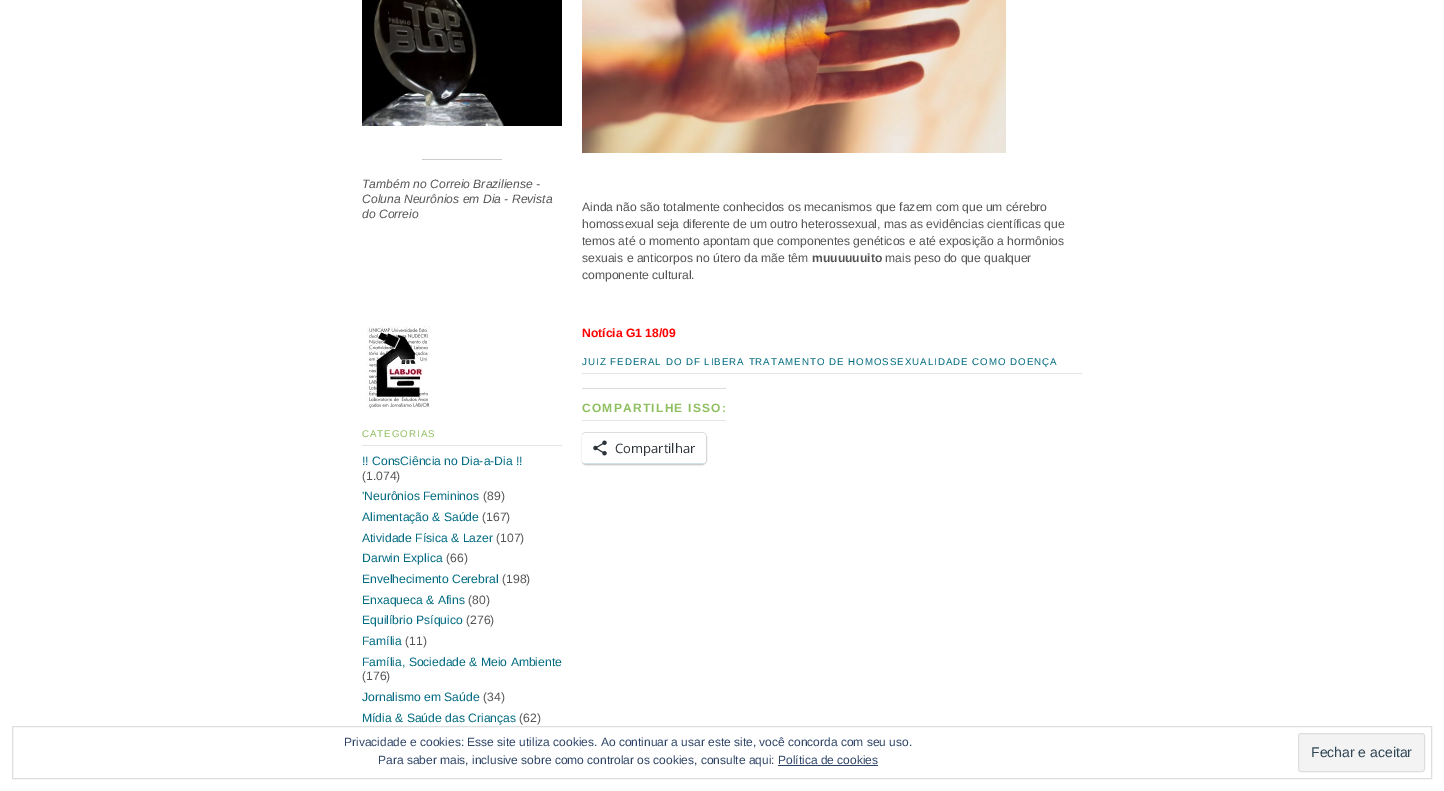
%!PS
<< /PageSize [1444 791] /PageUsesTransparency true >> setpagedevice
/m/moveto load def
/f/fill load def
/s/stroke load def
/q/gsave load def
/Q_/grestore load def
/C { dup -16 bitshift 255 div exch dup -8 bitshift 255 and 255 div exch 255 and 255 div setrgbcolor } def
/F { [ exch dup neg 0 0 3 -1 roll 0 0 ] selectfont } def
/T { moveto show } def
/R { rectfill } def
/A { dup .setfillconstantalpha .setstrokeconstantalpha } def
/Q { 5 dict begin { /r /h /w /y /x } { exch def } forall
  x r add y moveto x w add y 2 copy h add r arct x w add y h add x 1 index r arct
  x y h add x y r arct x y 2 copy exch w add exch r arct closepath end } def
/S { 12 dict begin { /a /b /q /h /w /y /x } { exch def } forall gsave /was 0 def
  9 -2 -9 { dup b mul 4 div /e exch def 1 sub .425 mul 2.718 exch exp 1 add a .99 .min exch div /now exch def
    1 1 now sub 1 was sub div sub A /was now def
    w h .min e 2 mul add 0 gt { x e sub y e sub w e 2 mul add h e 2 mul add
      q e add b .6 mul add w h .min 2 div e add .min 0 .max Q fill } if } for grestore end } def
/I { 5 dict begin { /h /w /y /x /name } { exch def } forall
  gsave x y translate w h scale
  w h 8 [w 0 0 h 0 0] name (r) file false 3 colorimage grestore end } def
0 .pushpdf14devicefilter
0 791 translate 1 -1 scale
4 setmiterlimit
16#FFFFFF C
0 0 1444 791 R
(1.rgb) 362 0 200 126 I
16#CCCCCC C
422 159 80 1 R
/LiberationSans-Italic 12.15 F
16#545454 C
(Também no Correio Braziliense -) 362 188 T
(Coluna Neurônios em Dia - Revista) 362 203 T
(do Correio) 362 218 T
(2.rgb) 366 326 64 83 I
16#E5E5E5 C
362 445 200 1 R
/LiberationSans-Regular 9.75 F
16#8FBF60 C
362 437 m .97 0 (CATEGORIAS) ashow
/LiberationSans-Regular 12.15 F
16#006A80 C
(!! ConsCiência no Dia-a-Dia !!) 362 465 T
16#545454 C
(\(1.074\)) 362 480 T
16#006A80 C
('Neurônios Femininos) 362 500 T
16#545454 C
(\(89\)) 483 500 T
16#006A80 C
(Alimentação & Saúde) 362 521 T
16#545454 C
(\(167\)) 482 521 T
16#006A80 C
(Atividade Física & Lazer) 362 542 T
16#545454 C
(\(107\)) 496 542 T
16#006A80 C
(Darwin Explica) 362 562 T
16#545454 C
(\(66\)) 446 562 T
16#006A80 C
(Envelhecimento Cerebral) 362 583 T
16#545454 C
(\(198\)) 502 583 T
16#006A80 C
(Enxaqueca & Afins) 362 604 T
16#545454 C
(\(80\)) 468 604 T
16#006A80 C
(Equilíbrio Psíquico) 362 624 T
16#545454 C
(\(276\)) 466 624 T
16#006A80 C
(Família) 362 645 T
16#545454 C
(\(11\)) 405 645 T
16#006A80 C
(Família, Sociedade & Meio Ambiente) 362 666 T
16#545454 C
(\(176\)) 362 680 T
16#006A80 C
(Jornalismo em Saúde) 362 701 T
16#545454 C
(\(34\)) 483 701 T
16#006A80 C
(Mídia & Saúde das Crianças) 362 722 T
16#545454 C
(\(62\)) 519 722 T
(3.rgb) 582 0 424 153 I
(Ainda não são totalmente conhecidos os mecanismos que fazem com que um cérebro) 582 211 T
(homossexual seja diferente de um outro heterossexual, mas as evidências científicas que) 582 228 T
(temos até o momento apontam que componentes genéticos e até exposição a hormônios) 582 245 T
(sexuais e anticorpos no útero da mãe têm) 582 262 T
/LiberationSans-Bold 12.15 F
(muuuuuuito) 812 262 T
/LiberationSans-Regular 12.15 F
(mais peso do que qualquer) 885 262 T
(componente cultural.) 582 279 T
/LiberationSans-Bold 12.15 F
16#FF0000 C
(Notícia G1 18/09) 582 337 T
16#E5E5E5 C
582 373 500 1 R
/LiberationSans-Regular 9.75 F
16#006A80 C
582 365 m .97 0 (JUIZ FEDERAL DO DF LIBERA TRATAMENTO DE HOMOSSEXUALIDADE COMO DOENÇA) ashow
16#E5E5E5 C
582 420 144 1 R
16#DCDCDE C
582 388 144 1 R
/LiberationSans-Bold 12 F
16#8FBF60 C
582 412 m 1.25 0 (COMPARTILHE ISSO:) ashow
q
582 0 500 563 rectclip
16#E0E0E0 C
581.5 432.5 125 32 4.5 Q s
Q_
16#000000 C
582 434 124 31 4 1 .12 S
16#FFFFFF C
582 433 124 31 4 Q f
16#CFE2E5 C
584 463 120 1 R
(4.rgb) 593 440 14 16 I
/OpenSans-Regular 13 F
16#2C3338 C
(Compartilhar) 615 453 T
16#DEDEDE C
12.5 726.5 1419 52 rectstroke
/LiberationSans-Regular 12 F
16#2E4467 C
(Privacidade e cookies: Esse site utiliza cookies. Ao continuar a usar este site, você concorda com seu uso.) 344 746 T
16#F3F3F3 C
1298.5 733.5 126 38 2.5 Q q f Q_
16#DEDEDE C
s
/LiberationSans-Regular 14 F
16#2E4453 C
(Fechar e aceitar) 1311 757 T
/LiberationSans-Regular 12 F
16#2E4467 C
(Para saber mais, inclusive sobre como controlar os cookies, consulte aqui: Política de cookies) 378 764 T
778 765 100 1 R
.poppdf14devicefilter showpage
